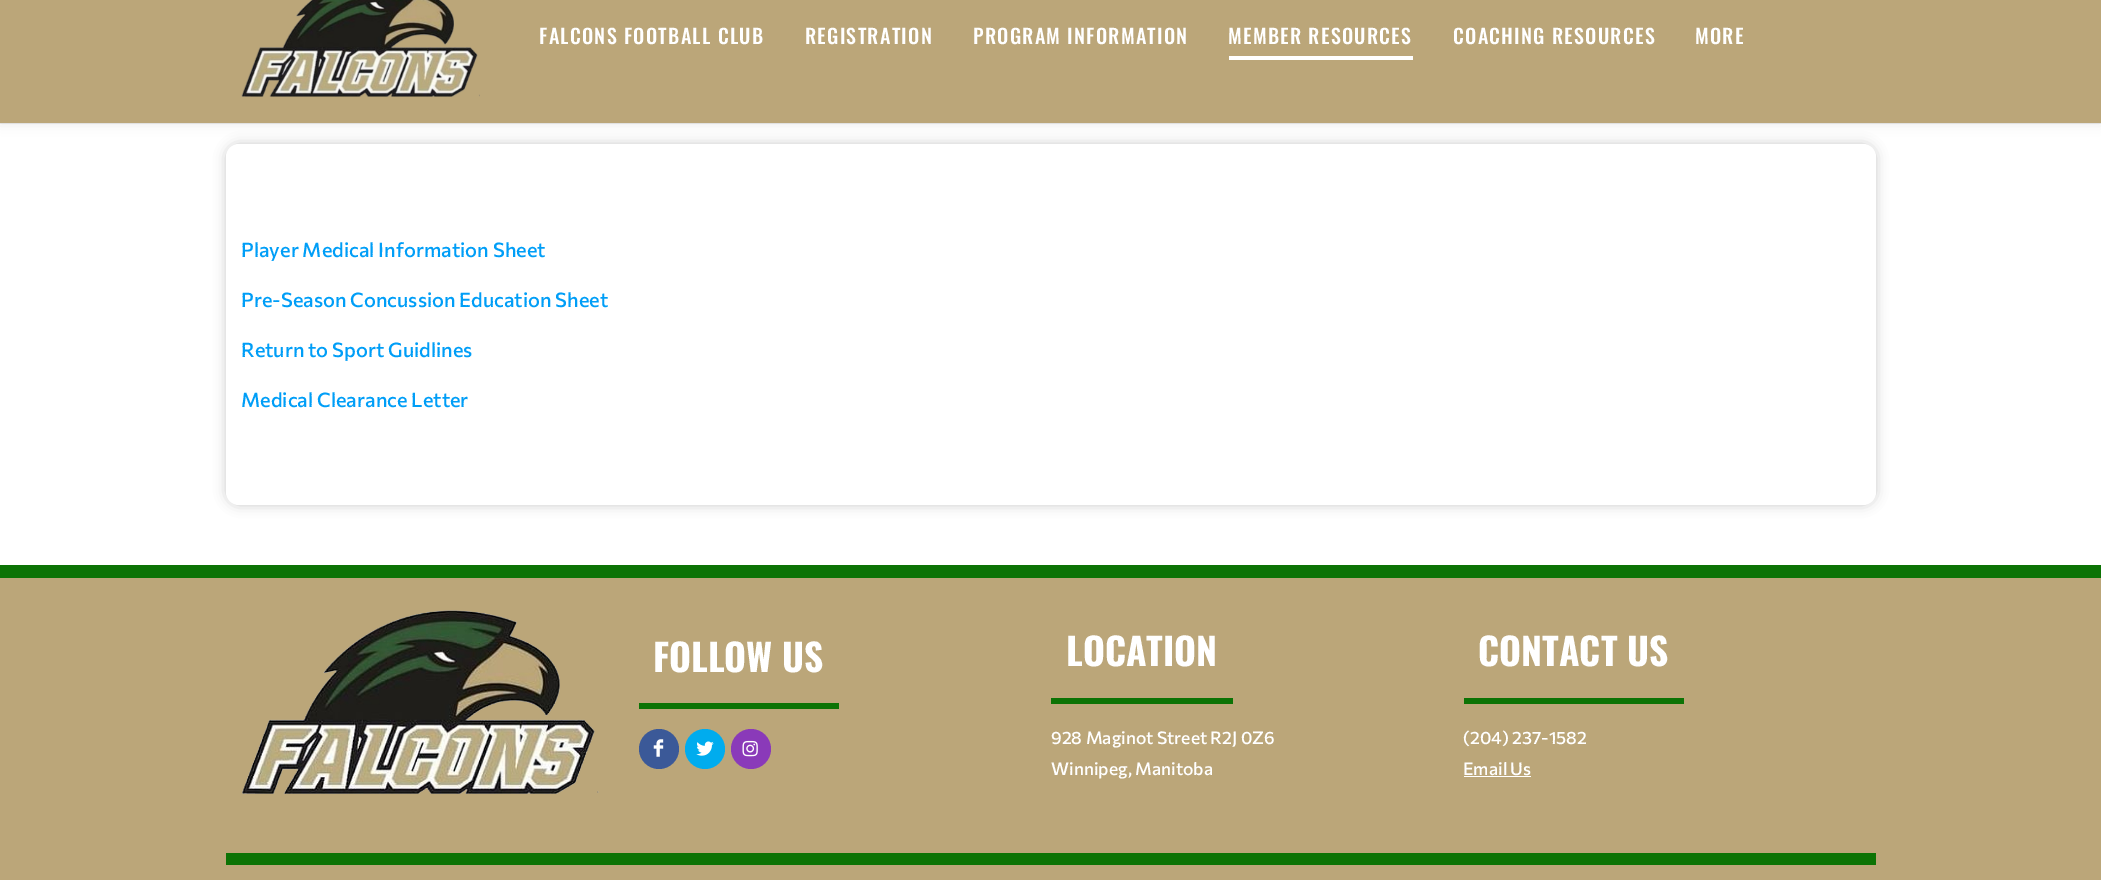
%!PS
<< /PageSize [2101 880] /PageUsesTransparency true >> setpagedevice
/m/moveto load def
/f/fill load def
/C { dup -16 bitshift 255 div exch dup -8 bitshift 255 and 255 div exch 255 and 255 div setrgbcolor } def
/F { [ exch dup neg 0 0 3 -1 roll 0 0 ] selectfont } def
/T { moveto show } def
/R { rectfill } def
/A { dup .setfillconstantalpha .setstrokeconstantalpha } def
/O { newpath 0 360 arc closepath } def
/Q { 5 dict begin { /r /h /w /y /x } { exch def } forall
  x r add y moveto x w add y 2 copy h add r arct x w add y h add x 1 index r arct
  x y h add x y r arct x y 2 copy exch w add exch r arct closepath end } def
/S { 12 dict begin { /a /b /q /h /w /y /x } { exch def } forall gsave /was 0 def
  9 -2 -9 { dup b mul 4 div /e exch def 1 sub .425 mul 2.718 exch exp 1 add a .99 .min exch div /now exch def
    1 1 now sub 1 was sub div sub A /was now def
    w h .min e 2 mul add 0 gt { x e sub y e sub w e 2 mul add h e 2 mul add
      q e add b .6 mul add w h .min 2 div e add .min 0 .max Q fill } if } for grestore end } def
/I { 5 dict begin { /h /w /y /x /name } { exch def } forall
  gsave x y translate w h scale
  w h 8 [w 0 0 h 0 0] name (r) file false 3 colorimage grestore end } def
0 .pushpdf14devicefilter
0 880 translate 1 -1 scale
4 setmiterlimit
16#FFFFFF C
0 0 2101 880 R
16#EEEEEE C
0 123 2101 1 R
16#000000 C
0 -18 2101 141 0 6 .1 S
16#BBA679 C
0 0 2101 123 R
(1.rgb) 241 0 239 97 I
/Oswald-Medium 20 F
16#FFFFFF C
539 44 m 1.25 0 (FALCONS FOOTBALL CLUB) ashow
805 44 m 1.25 0 (REGISTRATION) ashow
973 44 m 1.25 0 (PROGRAM INFORMATION) ashow
1228 44 m 1.25 0 (MEMBER RESOURCES) ashow
1229 56 184 4 R
1453 44 m 1.25 0 (COACHING RESOURCES) ashow
1695 44 m 1.25 0 (MORE) ashow
16#000000 C
226 144 1650 361 13 6 .2 S
16#FFFFFF C
226 144 1650 361 13 Q f
/Commissioner-Medium 20 F
16#009EF7 C
(Player Medical Information Sheet) 241 257 T
(Pre-Season Concussion Education Sheet) 241 307 T
(Return to Sport Guidlines) 241 357 T
(Medical Clearance Letter) 241 407 T
16#BBA679 C
0 578 2101 302 R
16#0C7305 C
0 565 2101 13 R
226 853 1650 12 R
(2.rgb) 242 610 357 184 I
639 703 200 6 R
/Oswald-Bold 37.5 F
16#FFFFFF C
(FOLLOW US) 653 672 T
16#3B5998 C
659 749 20 O f
(3.rgb) 653 739 11 18 I
16#00ACEE C
705 749 20 O f
(4.rgb) 696 741 18 15 I
16#8A3AB9 C
751 749 20 O f
(5.rgb) 742 740 16 17 I
16#0C7305 C
1051 698 182 6 R
16#FFFFFF C
(LOCATION) 1066 666 T
/Commissioner-Medium 17.5 F
(928 Maginot Street R2J 0Z6) 1051 744 T
(Winnipeg, Manitoba) 1051 775 T
16#0C7305 C
1464 698 220 6 R
/Oswald-Bold 37.5 F
16#FFFFFF C
(CONTACT US) 1478 666 T
/Commissioner-Medium 17.5 F
(\(204\) 237-1582) 1463 744 T
(Email Us) 1463 775 T
1464 776 67 1 R
.poppdf14devicefilter showpage
